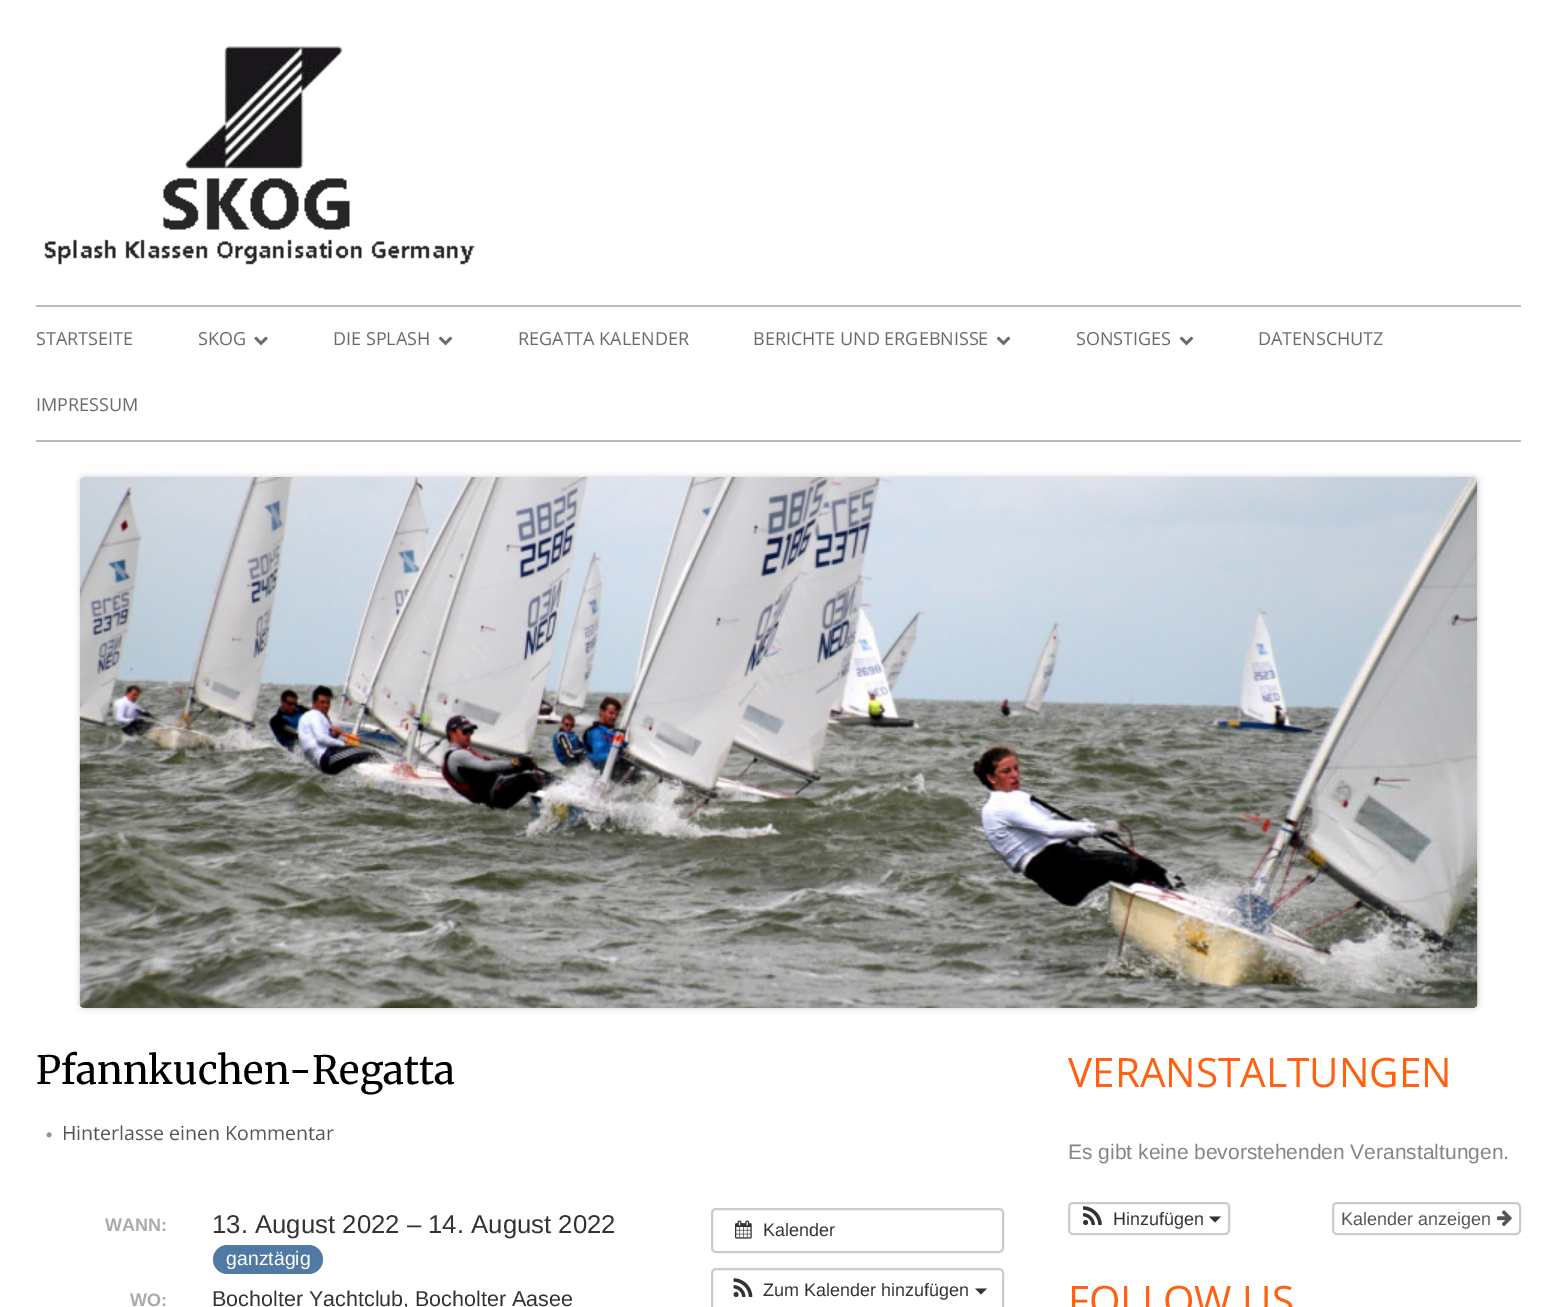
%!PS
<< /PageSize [1556 1307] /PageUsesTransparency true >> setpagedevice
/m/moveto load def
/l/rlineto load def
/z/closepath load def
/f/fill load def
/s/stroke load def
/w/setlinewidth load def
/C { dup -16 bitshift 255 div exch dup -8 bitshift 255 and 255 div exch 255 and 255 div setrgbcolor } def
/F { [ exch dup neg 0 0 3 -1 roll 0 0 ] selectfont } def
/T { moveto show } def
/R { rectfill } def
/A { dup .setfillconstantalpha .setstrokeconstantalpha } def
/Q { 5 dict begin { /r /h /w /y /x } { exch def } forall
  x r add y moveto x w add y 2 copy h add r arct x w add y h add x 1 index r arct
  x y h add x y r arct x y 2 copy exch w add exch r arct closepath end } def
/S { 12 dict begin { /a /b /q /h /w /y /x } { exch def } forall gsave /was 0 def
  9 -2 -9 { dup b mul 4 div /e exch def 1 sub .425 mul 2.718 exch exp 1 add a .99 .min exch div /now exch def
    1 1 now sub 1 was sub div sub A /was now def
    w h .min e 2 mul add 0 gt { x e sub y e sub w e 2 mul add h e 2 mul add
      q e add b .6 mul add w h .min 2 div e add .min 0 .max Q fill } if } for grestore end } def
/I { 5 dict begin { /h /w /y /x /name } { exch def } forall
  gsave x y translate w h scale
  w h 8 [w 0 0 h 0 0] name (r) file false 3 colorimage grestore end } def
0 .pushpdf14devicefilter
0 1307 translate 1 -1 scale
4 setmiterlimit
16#FFFFFF C
0 0 1556 1307 R
(1.rgb) 44 46 431 219 I
16#BBBBBB C
36 305 1485 2 R
36 440 1485 2 R
/OpenSans-Regular 18 F
16#6A6A6A C
(STARTSEITE) 36 345 T
(SKOG) 198 345 T
(2.rgb) 254 336 14 10 I
(DIE SPLASH) 333 345 T
(3.rgb) 438 336 15 10 I
(REGATTA KALENDER) 518 345 T
(BERICHTE UND ERGEBNISSE) 753 345 T
(3.rgb) 996 336 15 10 I
(SONSTIGES) 1076 345 T
(3.rgb) 1179 336 15 10 I
(DATENSCHUTZ) 1258 345 T
(IMPRESSUM) 36 411 T
16#000000 C
80 477 1398 531 5 3 .2 S
(4.rgb) 79 477 1399 531 I
/Merriweather-Light 39 F
(Pfannkuchen-Regatta) 36 1084 T
(5.rgb) 46 1132 6 6 I
/OpenSans-Regular 19.5 F
16#555555 C
(Hinterlasse einen Kommentar) 62 1140 T
/LiberationSans-Bold 18 F
16#AAAAAA C
(WANN:) 105 1231 T
/LiberationSans-Regular 25.75 F
16#333333 C
(13. August 2022 – 14. August 2022) 212 1233 T
16#507AA3 C
213 1245 110 29 14.5 Q f
/LiberationSans-Regular 19.5 F
16#FFFFFF C
(ganztägig) 226 1265 T
/LiberationSans-Bold 18 F
16#AAAAAA C
(WO:) 130 1306 T
/LiberationSans-Regular 21.5 F
16#333333 C
(Bocholter Yachtclub, Bocholter Aasee) 212 1306 T
16#CCCCCC C
2 w
712 1209 291 43 4 Q s
(6.rgb) 735 1220 17 19 I
/LiberationSans-Regular 18 F
16#333333 C
(Kalender) 763 1236 T
16#CCCCCC C
712 1269 291 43 4 Q s
(7.rgb) 733 1278 20 20 I
16#333333 C
(Zum Kalender hinzufügen) 763 1296 T
975 1288.5 m 12 0 l -6 6 l z f
/OpenSans-Regular 40.5 F
16#FF6111 C
(VERANSTALTUNGEN) 1068 1087 T
/LiberationSans-Regular 21 F
16#858585 C
(Es gibt keine bevorstehenden Veranstaltungen.) 1068 1159 T
16#CCCCCC C
1069 1203 160 31 4 Q s
(8.rgb) 1083 1206 19 20 I
/LiberationSans-Regular 18 F
16#333333 C
(Hinzufügen) 1113 1225 T
1209 1216.5 m 12 0 l -6 6 l z f
16#CCCCCC C
1333 1203 187 31 4 Q s
16#555555 C
(Kalender anzeigen) 1341 1225 T
(9.rgb) 1497 1210 15 16 I
/OpenSans-Regular 40.5 F
16#FF6111 C
(FOLLOW US) 1068 1315 T
.poppdf14devicefilter showpage
